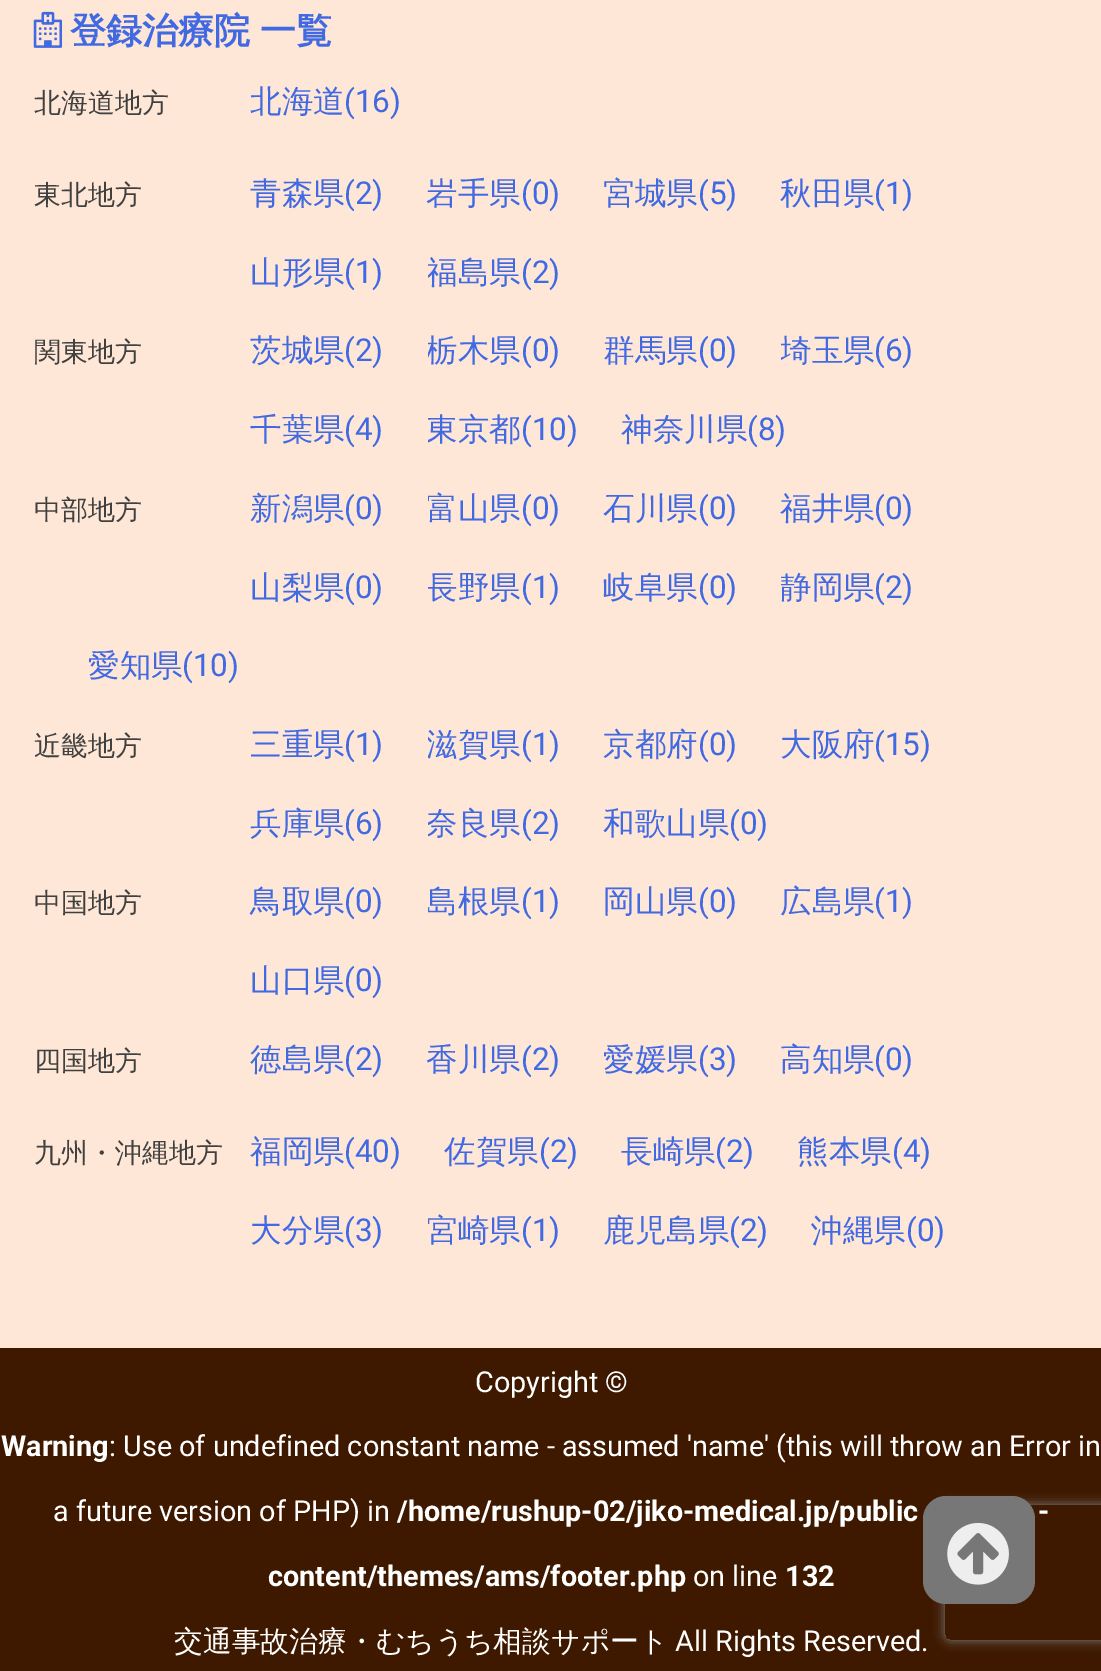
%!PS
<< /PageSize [1101 1671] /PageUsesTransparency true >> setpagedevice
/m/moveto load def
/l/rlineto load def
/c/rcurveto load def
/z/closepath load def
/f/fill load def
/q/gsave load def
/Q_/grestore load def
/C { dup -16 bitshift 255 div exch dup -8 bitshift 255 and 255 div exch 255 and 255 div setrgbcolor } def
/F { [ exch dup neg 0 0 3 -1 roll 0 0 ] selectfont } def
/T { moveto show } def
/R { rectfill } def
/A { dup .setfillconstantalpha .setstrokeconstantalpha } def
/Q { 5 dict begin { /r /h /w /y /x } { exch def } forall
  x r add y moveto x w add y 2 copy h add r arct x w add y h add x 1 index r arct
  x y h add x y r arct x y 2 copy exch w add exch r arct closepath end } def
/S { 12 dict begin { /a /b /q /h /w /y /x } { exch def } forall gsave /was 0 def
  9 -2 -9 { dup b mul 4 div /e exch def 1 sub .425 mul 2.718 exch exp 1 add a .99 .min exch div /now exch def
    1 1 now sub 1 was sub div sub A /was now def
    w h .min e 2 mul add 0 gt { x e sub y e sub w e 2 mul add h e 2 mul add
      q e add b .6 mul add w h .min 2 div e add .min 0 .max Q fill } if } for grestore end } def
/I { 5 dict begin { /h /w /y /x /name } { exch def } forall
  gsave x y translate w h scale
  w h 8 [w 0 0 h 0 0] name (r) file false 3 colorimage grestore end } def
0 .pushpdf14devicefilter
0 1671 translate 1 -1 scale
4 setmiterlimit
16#FFE7D7 C
0 0 1101 1671 R
(1.rgb) 33 11 30 37 I
/WenQuanYiZenHei-Bold 36 F
16#4169E1 C
70 43 m -1 0 32 (登録治療院 一覧) widthshow
/WenQuanYiZenHei-Medium 27 F
16#404040 C
(北海道地方) 34 112 T
/WenQuanYiZenHei-Medium 31.5 F
16#4169E1 C
(北海道) 250 112 T
/Roboto-Regular 31.5 F
(\(16\)) 344 112 T
/WenQuanYiZenHei-Medium 27 F
16#404040 C
(東北地方) 34 204 T
/WenQuanYiZenHei-Medium 31.5 F
16#4169E1 C
(青森県) 250 204 T
/Roboto-Regular 31.5 F
(\(2\)) 344 204 T
/WenQuanYiZenHei-Medium 31.5 F
(岩手県) 426 204 T
/Roboto-Regular 31.5 F
(\(0\)) 521 204 T
/WenQuanYiZenHei-Medium 31.5 F
(宮城県) 603 204 T
/Roboto-Regular 31.5 F
(\(5\)) 698 204 T
/WenQuanYiZenHei-Medium 31.5 F
(秋田県) 780 204 T
/Roboto-Regular 31.5 F
(\(1\)) 874 204 T
/WenQuanYiZenHei-Medium 31.5 F
(山形県) 250 283 T
/Roboto-Regular 31.5 F
(\(1\)) 344 283 T
q
428 245 132 57 rectclip
/WenQuanYiZenHei-Medium 31.5 F
(福島県) 426 283 T
Q_
(\(2\)) 521 283 T
/WenQuanYiZenHei-Medium 27 F
16#404040 C
(関東地方) 34 361 T
/WenQuanYiZenHei-Medium 31.5 F
16#4169E1 C
(茨城県) 250 361 T
/Roboto-Regular 31.5 F
(\(2\)) 344 361 T
q
428 324 132 56 rectclip
/WenQuanYiZenHei-Medium 31.5 F
(栃木県) 426 361 T
Q_
(\(0\)) 521 361 T
/WenQuanYiZenHei-Medium 31.5 F
(群馬県) 603 361 T
/Roboto-Regular 31.5 F
(\(0\)) 698 361 T
q
781 324 133 56 rectclip
/WenQuanYiZenHei-Medium 31.5 F
(埼玉県) 780 361 T
Q_
(\(6\)) 874 361 T
/WenQuanYiZenHei-Medium 31.5 F
(千葉県) 250 440 T
/Roboto-Regular 31.5 F
(\(4\)) 344 440 T
q
428 403 150 56 rectclip
/WenQuanYiZenHei-Medium 31.5 F
(東京都) 426 440 T
Q_
(\(10\)) 521 440 T
/WenQuanYiZenHei-Medium 31.5 F
(神奈川県) 621 440 T
/Roboto-Regular 31.5 F
(\(8\)) 747 440 T
/WenQuanYiZenHei-Medium 31.5 F
(新潟県) 250 519 T
/Roboto-Regular 31.5 F
(\(0\)) 344 519 T
q
428 482 132 56 rectclip
/WenQuanYiZenHei-Medium 31.5 F
(富山県) 426 519 T
Q_
(\(0\)) 521 519 T
/WenQuanYiZenHei-Medium 31.5 F
(石川県) 603 519 T
/Roboto-Regular 31.5 F
(\(0\)) 698 519 T
/WenQuanYiZenHei-Medium 31.5 F
(福井県) 780 519 T
/Roboto-Regular 31.5 F
(\(0\)) 874 519 T
/WenQuanYiZenHei-Medium 31.5 F
(山梨県) 250 598 T
/Roboto-Regular 31.5 F
(\(0\)) 344 598 T
q
428 560 132 57 rectclip
/WenQuanYiZenHei-Medium 31.5 F
(長野県) 426 598 T
Q_
(\(1\)) 521 598 T
/WenQuanYiZenHei-Medium 31.5 F
(岐阜県) 603 598 T
/Roboto-Regular 31.5 F
(\(0\)) 698 598 T
q
781 560 133 57 rectclip
/WenQuanYiZenHei-Medium 31.5 F
(静岡県) 780 598 T
Q_
(\(2\)) 874 598 T
/WenQuanYiZenHei-Medium 31.5 F
(愛知県) 88 676 T
/Roboto-Regular 31.5 F
(\(10\)) 182 676 T
/WenQuanYiZenHei-Medium 27 F
16#404040 C
(中部地方) 34 519 T
(近畿地方) 34 755 T
/WenQuanYiZenHei-Medium 31.5 F
16#4169E1 C
(三重県) 250 755 T
/Roboto-Regular 31.5 F
(\(1\)) 344 755 T
q
428 718 132 56 rectclip
/WenQuanYiZenHei-Medium 31.5 F
(滋賀県) 426 755 T
Q_
(\(1\)) 521 755 T
/WenQuanYiZenHei-Medium 31.5 F
(京都府) 603 755 T
/Roboto-Regular 31.5 F
(\(0\)) 698 755 T
/WenQuanYiZenHei-Medium 31.5 F
(大阪府) 780 755 T
/Roboto-Regular 31.5 F
(\(15\)) 874 755 T
/WenQuanYiZenHei-Medium 31.5 F
(兵庫県) 250 834 T
/Roboto-Regular 31.5 F
(\(6\)) 344 834 T
q
428 797 132 56 rectclip
/WenQuanYiZenHei-Medium 31.5 F
(奈良県) 426 834 T
Q_
(\(2\)) 521 834 T
/WenQuanYiZenHei-Medium 31.5 F
(和歌山県) 603 834 T
/Roboto-Regular 31.5 F
(\(0\)) 729 834 T
/WenQuanYiZenHei-Medium 27 F
16#404040 C
(中国地方) 34 912 T
/WenQuanYiZenHei-Medium 31.5 F
16#4169E1 C
(鳥取県) 250 912 T
/Roboto-Regular 31.5 F
(\(0\)) 344 912 T
q
428 875 132 57 rectclip
/WenQuanYiZenHei-Medium 31.5 F
(島根県) 426 912 T
Q_
(\(1\)) 521 912 T
/WenQuanYiZenHei-Medium 31.5 F
(岡山県) 603 912 T
/Roboto-Regular 31.5 F
(\(0\)) 698 912 T
/WenQuanYiZenHei-Medium 31.5 F
(広島県) 780 912 T
/Roboto-Regular 31.5 F
(\(1\)) 874 912 T
/WenQuanYiZenHei-Medium 31.5 F
(山口県) 250 991 T
/Roboto-Regular 31.5 F
(\(0\)) 344 991 T
/WenQuanYiZenHei-Medium 27 F
16#404040 C
(四国地方) 34 1070 T
/WenQuanYiZenHei-Medium 31.5 F
16#4169E1 C
(徳島県) 250 1070 T
/Roboto-Regular 31.5 F
(\(2\)) 344 1070 T
/WenQuanYiZenHei-Medium 31.5 F
(香川県) 426 1070 T
/Roboto-Regular 31.5 F
(\(2\)) 521 1070 T
/WenQuanYiZenHei-Medium 31.5 F
(愛媛県) 603 1070 T
/Roboto-Regular 31.5 F
(\(3\)) 698 1070 T
/WenQuanYiZenHei-Medium 31.5 F
(高知県) 780 1070 T
/Roboto-Regular 31.5 F
(\(0\)) 874 1070 T
/WenQuanYiZenHei-Medium 27 F
16#404040 C
(九州・沖縄地方) 34 1162 T
/WenQuanYiZenHei-Medium 31.5 F
16#4169E1 C
(福岡県) 250 1162 T
/Roboto-Regular 31.5 F
(\(40\)) 344 1162 T
/WenQuanYiZenHei-Medium 31.5 F
(佐賀県) 444 1162 T
/Roboto-Regular 31.5 F
(\(2\)) 539 1162 T
/WenQuanYiZenHei-Medium 31.5 F
(長崎県) 621 1162 T
/Roboto-Regular 31.5 F
(\(2\)) 715 1162 T
/WenQuanYiZenHei-Medium 31.5 F
(熊本県) 797 1162 T
/Roboto-Regular 31.5 F
(\(4\)) 892 1162 T
/WenQuanYiZenHei-Medium 31.5 F
(大分県) 250 1241 T
/Roboto-Regular 31.5 F
(\(3\)) 344 1241 T
q
428 1202 132 58 rectclip
/WenQuanYiZenHei-Medium 31.5 F
(宮崎県) 426 1241 T
Q_
(\(1\)) 521 1241 T
/WenQuanYiZenHei-Medium 31.5 F
(鹿児島県) 603 1241 T
/Roboto-Regular 31.5 F
(\(2\)) 729 1241 T
/WenQuanYiZenHei-Medium 31.5 F
(沖縄県) 811 1241 T
/Roboto-Regular 31.5 F
(\(0\)) 906 1241 T
16#3E1900 C
0 1348 1101 323 R
/Roboto-Regular 28.8 F
16#FFFFFF C
(Copyright ©) 475 1392 T
/Roboto-Bold 28.8 F
(Warning) 1 1456 T
/Roboto-Regular 28.8 F
(: Use of undefined constant name - assumed 'name' \(this will throw an Error in) 109 1456 T
(a future version of PHP\) in) 53 1521 T
/Roboto-Bold 28.8 F
(/home/rushup-02/jiko-medical.jp/public) 397 1521 T
(-) 1038 1521 T
(content/themes/ams/footer.php) 268 1586 T
/Roboto-Regular 28.8 F
(on line) 693 1586 T
/Roboto-Bold 28.8 F
(132) 785 1586 T
/WenQuanYiZenHei-Medium 28.8 F
(交通事故治療・むちうち相談サポート) 174 1651 T
/Roboto-Regular 28.8 F
(All Rights Reserved.) 675 1651 T
q
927 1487 m 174 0 l 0 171 l -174 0 l z 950 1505 m 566 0 l 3 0 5 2 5 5 c 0 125 l 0 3 -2 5 -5 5 c -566 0 l -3 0 -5 -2 -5 -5 c 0 -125 l 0 -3 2 -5 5 -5 c z eoclip newpath
16#808080 C
945 1505 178 135 5 5.5 1 S
Q_
16#777777 C
923 1496 112 108 23 Q f
(2.rgb) 947 1522 62 63 I
.poppdf14devicefilter showpage
